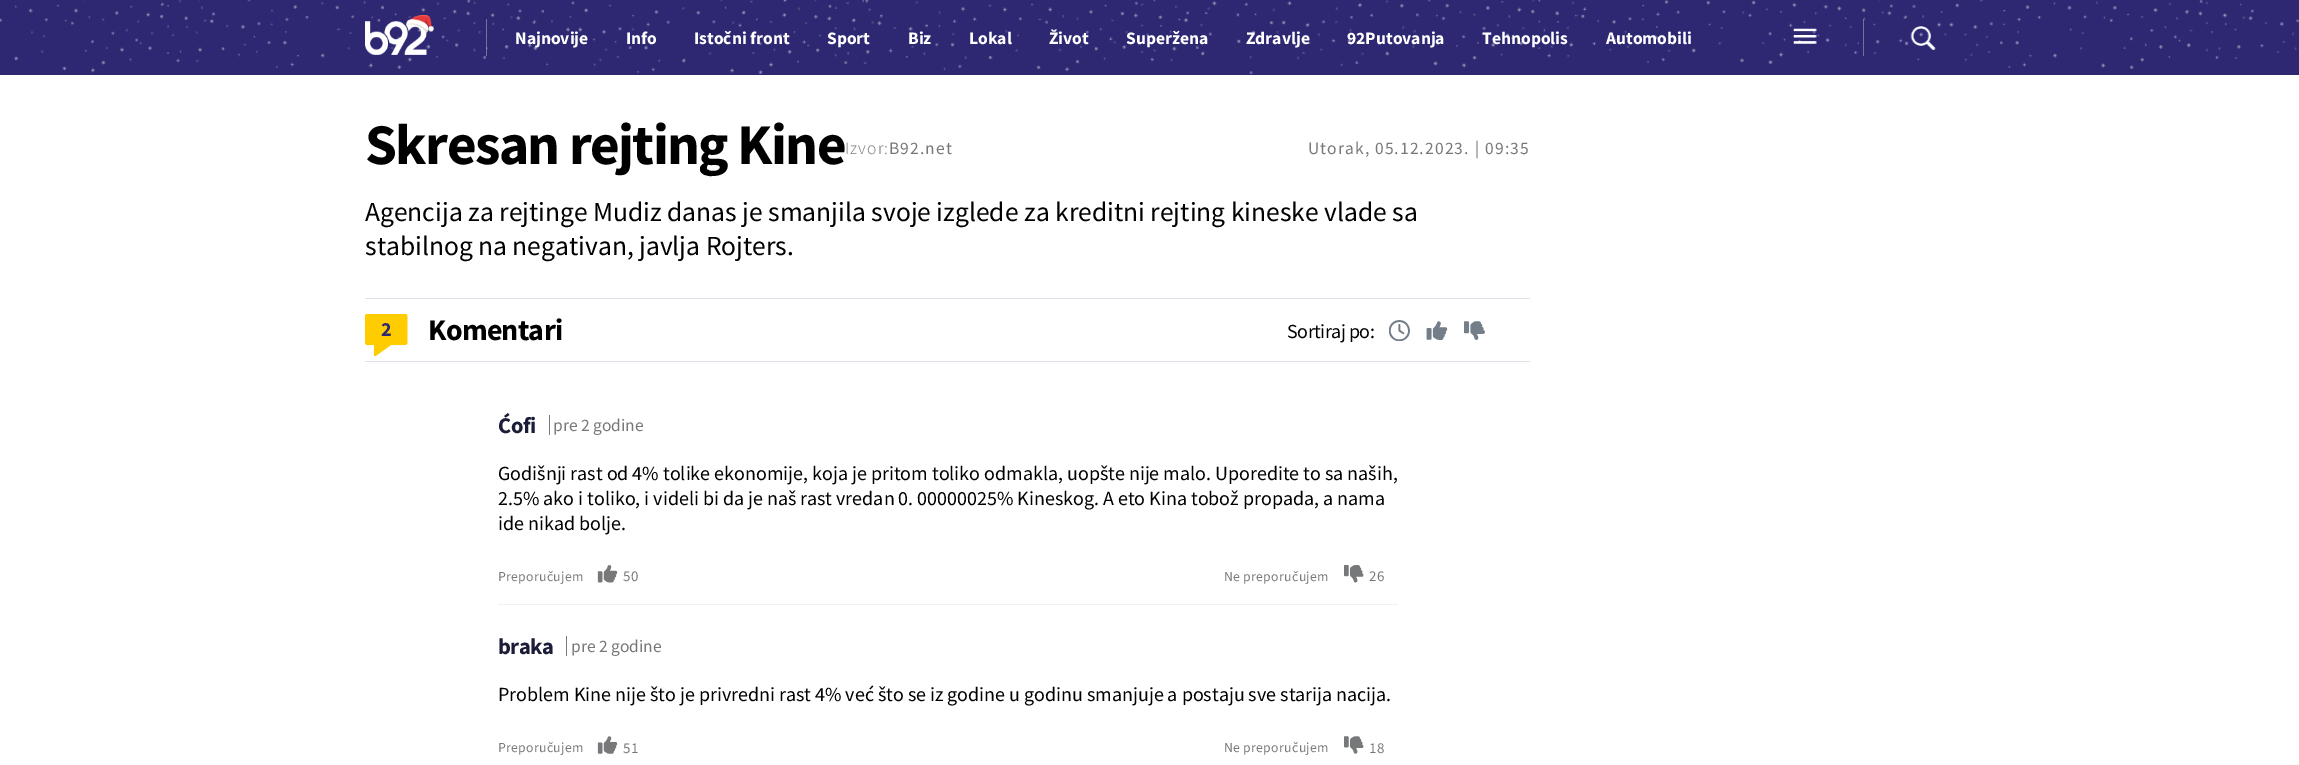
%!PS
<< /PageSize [2299 765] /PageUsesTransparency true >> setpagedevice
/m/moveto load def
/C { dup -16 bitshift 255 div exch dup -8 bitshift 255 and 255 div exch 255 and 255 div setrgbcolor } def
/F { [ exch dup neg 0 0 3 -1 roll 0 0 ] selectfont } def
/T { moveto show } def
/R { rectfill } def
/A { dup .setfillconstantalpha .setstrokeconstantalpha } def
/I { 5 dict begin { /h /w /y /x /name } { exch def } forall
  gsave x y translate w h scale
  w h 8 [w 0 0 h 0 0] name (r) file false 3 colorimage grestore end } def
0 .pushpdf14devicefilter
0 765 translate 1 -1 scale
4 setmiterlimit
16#FFFFFF C
0 0 2299 765 R
16#2E2873 C
0 0 2299 75 R
(1.rgb) 0 0 2299 74 I
(2.rgb) 365 15 69 40 I
0.33 A
16#FFFFFF C
486 19 1 37 R
/SourceSansPro-Bold 17.5 F
1 A
(Najnovije) 515 44 T
(Info) 626 44 T
(Istočni front) 694 44 T
(Sport) 827 44 T
(Biz) 908 44 T
(Lokal) 969 44 T
(Život) 1049 44 T
(Superžena) 1126 44 T
(Zdravlje) 1246 44 T
(92Putovanja) 1347 44 T
(Tehnopolis) 1482 44 T
(Automobili) 1606 44 T
(3.rgb) 1793 28 24 16 I
0.33 A
1863 19 1 37 R
1 A
(4.rgb) 1910 26 26 24 I
/SourceSansPro-Bold 57.5 F
16#000000 C
365 164 m -1.6 0 (Skresan rejting Kine) ashow
/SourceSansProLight-Light 17.5 F
16#77787A C
845 154 m 1.1 0 (Izvor:) ashow
/SourceSansPro-Regular 17.5 F
889 154 m 1.1 0 (B92.net) ashow
1308 154 m 1.1 0 (Utorak, 05.12.2023.) ashow
1475 154 m 1.1 0 (|) ashow
1485 154 m 1.1 0 (09:35) ashow
/SourceSansPro-Regular 27.5 F
16#000000 C
(Agencija za rejtinge Mudiz danas je smanjila svoje izglede za kreditni rejting kineske vlade sa) 365 221 T
(stabilnog na negativan, javlja Rojters.) 365 255 T
16#E0DFEA C
365 298 1165 1 R
365 361 1165 1 R
(5.rgb) 365 314 43 42 I
/SourceSansPro-Bold 20 F
16#2E2873 C
381 336 m -1 0 (2) ashow
/SourceSansPro-Bold 30 F
16#000000 C
428 340 m -.75 0 (Komentari) ashow
/SourceSansPro-Regular 20 F
1287 338 m -.5 0 (Sortiraj po:) ashow
(6.rgb) 1389 320 21 21 I
(7.rgb) 1426 321 22 19 I
(8.rgb) 1464 321 21 19 I
16#F1F1F1 C
498 604 900 1 R
/SourceSansPro-Bold 22.5 F
16#1B1D38 C
498 433 m -.5 0 (Ćofi) ashow
16#77787A C
549 415 1 20 R
/SourceSansPro-Regular 17.5 F
(pre 2 godine) 553 431 T
/SourceSansPro-Regular 20 F
16#000000 C
(Godišnji rast od 4% tolike ekonomije, koja je pritom toliko odmakla, uopšte nije malo. Uporedite to sa naših,) 498 480 T
(2.5% ako i toliko, i videli bi da je naš rast vredan 0. 00000025% Kineskog. A eto Kina tobož propada, a nama) 498 505 T
(ide nikad bolje.) 498 530 T
/SourceSansPro-Regular 13.75 F
16#77787A C
498 581 m .3 0 (Preporučujem) ashow
(9.rgb) 597 565 21 18 I
/SourceSansPro-Regular 15 F
623 581 m .3 0 (50) ashow
/SourceSansPro-Regular 13.75 F
1224 581 m .3 0 (Ne preporučujem) ashow
(10.rgb) 1344 565 20 18 I
/SourceSansPro-Regular 15 F
1369 581 m .3 0 (26) ashow
/SourceSansPro-Bold 22.5 F
16#1B1D38 C
498 654 m -.5 0 (braka) ashow
16#77787A C
566 636 1 20 R
/SourceSansPro-Regular 17.5 F
(pre 2 godine) 571 652 T
/SourceSansPro-Regular 20 F
16#000000 C
(Problem Kine nije što je privredni rast 4% već što se iz godine u godinu smanjuje a postaju sve starija nacija.) 498 701 T
/SourceSansPro-Regular 13.75 F
16#77787A C
498 752 m .3 0 (Preporučujem) ashow
(11.rgb) 597 736 21 18 I
/SourceSansPro-Regular 15 F
623 753 m .3 0 (51) ashow
/SourceSansPro-Regular 13.75 F
1224 752 m .3 0 (Ne preporučujem) ashow
(12.rgb) 1344 736 20 18 I
/SourceSansPro-Regular 15 F
1369 753 m .3 0 (18) ashow
.poppdf14devicefilter showpage
